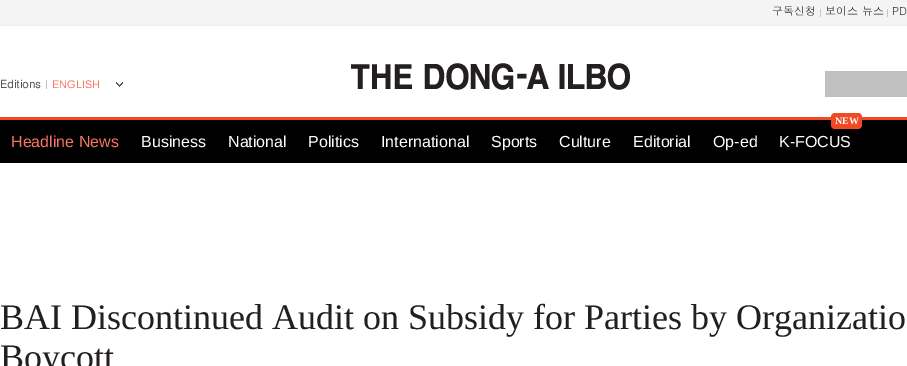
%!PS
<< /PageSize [907 366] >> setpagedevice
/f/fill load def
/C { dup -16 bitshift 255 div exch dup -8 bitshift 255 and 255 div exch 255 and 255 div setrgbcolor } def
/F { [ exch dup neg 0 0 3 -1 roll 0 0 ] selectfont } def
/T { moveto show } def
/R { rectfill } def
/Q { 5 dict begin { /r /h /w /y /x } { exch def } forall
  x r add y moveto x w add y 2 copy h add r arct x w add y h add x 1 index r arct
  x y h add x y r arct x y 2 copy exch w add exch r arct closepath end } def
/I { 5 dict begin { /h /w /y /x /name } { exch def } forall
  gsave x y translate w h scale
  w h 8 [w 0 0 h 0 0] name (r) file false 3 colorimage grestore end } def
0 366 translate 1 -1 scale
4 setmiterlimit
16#FFFFFF C
0 0 907 366 R
16#F4F4F4 C
0 0 907 25 R
16#EEEEEE C
0 25 907 1 R
16#C7C7C9 C
820 9 1 8 R
/Dotum-Regular 11 F
16#333333 C
(구독신청) 772 15 T
16#C7C7C9 C
887 9 1 8 R
16#333333 C
(보이스 뉴스) 825 15 T
(PD) 892 15 T
16#C0C0C0 C
46 80 1 9 R
/Dotum-Bold 11 F
16#575757 C
(Editions) 0 88 T
(1.rgb) 116 82 7 5 I
/LiberationSans-Regular 11 F
16#F77660 C
(ENGLISH) 52 88 T
(2.rgb) 351 63 279 27 I
16#C0C0C0 C
825 71 82 26 R
16#000000 C
0 120 907 43 R
16#EF4A24 C
0 117 907 3 R
/LiberationSans-Regular 16 F
16#F77660 C
(Headline News) 11 147 T
16#FFFFFF C
(Business) 141 147 T
(National) 228 147 T
(Politics) 308 147 T
(International) 381 147 T
(Sports) 491 147 T
(Culture) 559 147 T
(Editorial) 633 147 T
(Op-ed) 713 147 T
16#EF4A24 C
831 113 31 16 4 Q f
/LiberationSerif-Bold 10 F
16#FFFFFF C
(NEW) 835 124 T
/LiberationSans-Regular 16 F
(K-FOCUS) 779 147 T
/LiberationSerif-Regular 36 F
16#231F20 C
(BAI Discontinued Audit on Subsidy for Parties by Organizatio) 0 329 T
(Boycott) 0 369 T
showpage
